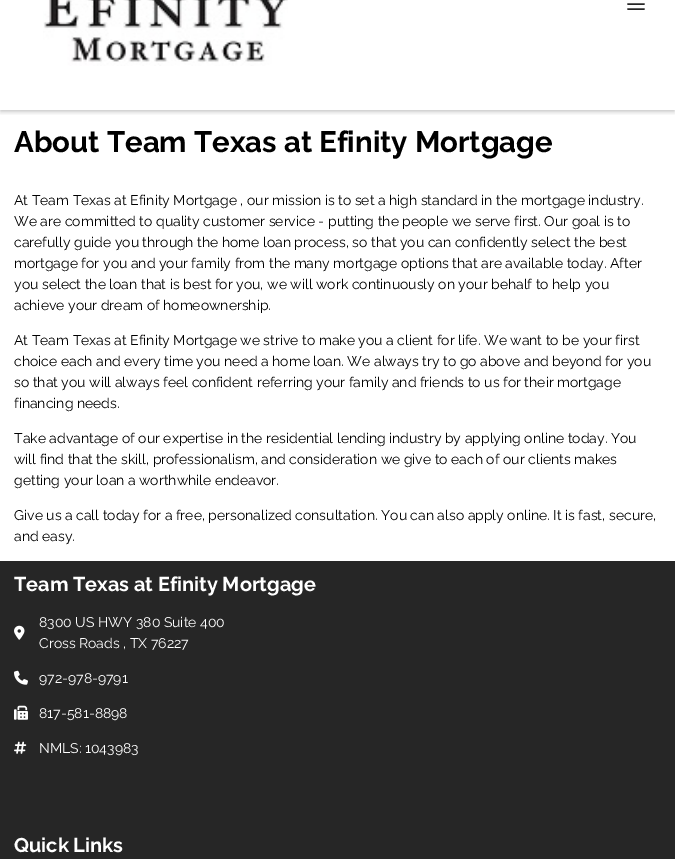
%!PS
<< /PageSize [675 859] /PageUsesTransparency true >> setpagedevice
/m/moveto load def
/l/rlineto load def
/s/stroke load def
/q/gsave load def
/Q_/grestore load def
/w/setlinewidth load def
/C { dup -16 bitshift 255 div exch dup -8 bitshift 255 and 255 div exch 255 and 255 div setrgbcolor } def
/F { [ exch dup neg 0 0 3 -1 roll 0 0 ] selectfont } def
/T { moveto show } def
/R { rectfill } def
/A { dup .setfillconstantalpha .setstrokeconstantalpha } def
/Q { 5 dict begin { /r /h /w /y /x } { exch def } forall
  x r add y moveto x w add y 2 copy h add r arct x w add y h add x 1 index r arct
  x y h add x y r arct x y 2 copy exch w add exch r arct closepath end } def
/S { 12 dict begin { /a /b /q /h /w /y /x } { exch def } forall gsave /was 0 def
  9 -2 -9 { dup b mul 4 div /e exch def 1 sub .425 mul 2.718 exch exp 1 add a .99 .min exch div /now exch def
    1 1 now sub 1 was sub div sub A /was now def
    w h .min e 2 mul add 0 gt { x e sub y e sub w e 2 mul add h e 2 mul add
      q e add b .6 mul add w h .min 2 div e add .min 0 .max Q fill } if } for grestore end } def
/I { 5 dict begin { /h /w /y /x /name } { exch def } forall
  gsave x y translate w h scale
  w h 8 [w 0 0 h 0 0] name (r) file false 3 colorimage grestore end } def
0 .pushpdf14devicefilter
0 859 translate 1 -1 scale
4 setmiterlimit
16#FFFFFF C
0 0 675 859 R
q
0 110 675 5 rectclip
16#000000 C
0 -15 675 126 0 5 .1 S
Q_
q
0 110 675 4 rectclip
16#000000 C
1 -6 673 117 0 2 .2 S
Q_
(1.rgb) 43 0 245 66 I
16#262626 C
1.5 w
1 setlinecap
1 setlinejoin
628 -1 m 16 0 l 628 4 m 16 0 l 628 9 m 16 0 l s
/Raleway-Bold 29.4 F
16#000000 C
(About Team Texas at Efinity Mortgage) 14 152 T
/Raleway-Regular 14 F
(At Team Texas at Efinity Mortgage , our mission is to set a high standard in the mortgage industry.) 14 205 T
(We are committed to quality customer service - putting the people we serve first. Our goal is to) 14 226 T
(carefully guide you through the home loan process, so that you can confidently select the best) 14 247 T
(mortgage for you and your family from the many mortgage options that are available today. After) 14 268 T
(you select the loan that is best for you, we will work continuously on your behalf to help you) 14 289 T
(achieve your dream of homeownership.) 14 310 T
(At Team Texas at Efinity Mortgage we strive to make you a client for life. We want to be your first) 14 345 T
(choice each and every time you need a home loan. We always try to go above and beyond for you) 14 366 T
(so that you will always feel confident referring your family and friends to us for their mortgage) 14 387 T
(financing needs.) 14 408 T
(Take advantage of our expertise in the residential lending industry by applying online today. You) 14 443 T
(will find that the skill, professionalism, and consideration we give to each of our clients makes) 14 464 T
(getting your loan a worthwhile endeavor.) 14 485 T
(Give us a call today for a free, personalized consultation. You can also apply online. It is fast, secure,) 14 520 T
(and easy.) 14 541 T
16#262626 C
0 561 675 298 R
/Raleway-Bold 19.9 F
16#FFFFFF C
(Team Texas at Efinity Mortgage) 14 591 T
(2.rgb) 14 625 11 15 I
/Raleway-Regular 14 F
(8300 US HWY 380 Suite 400) 39 627 T
(Cross Roads , TX 76227) 39 648 T
(3.rgb) 14 670 14 15 I
(972-978-9791) 39 683 T
(4.rgb) 14 705 14 15 I
(817-581-8898) 39 718 T
(5.rgb) 14 741 13 13 I
(NMLS: 1043983) 39 753 T
/Raleway-Bold 19.9 F
(Quick Links) 14 852 T
.poppdf14devicefilter showpage
